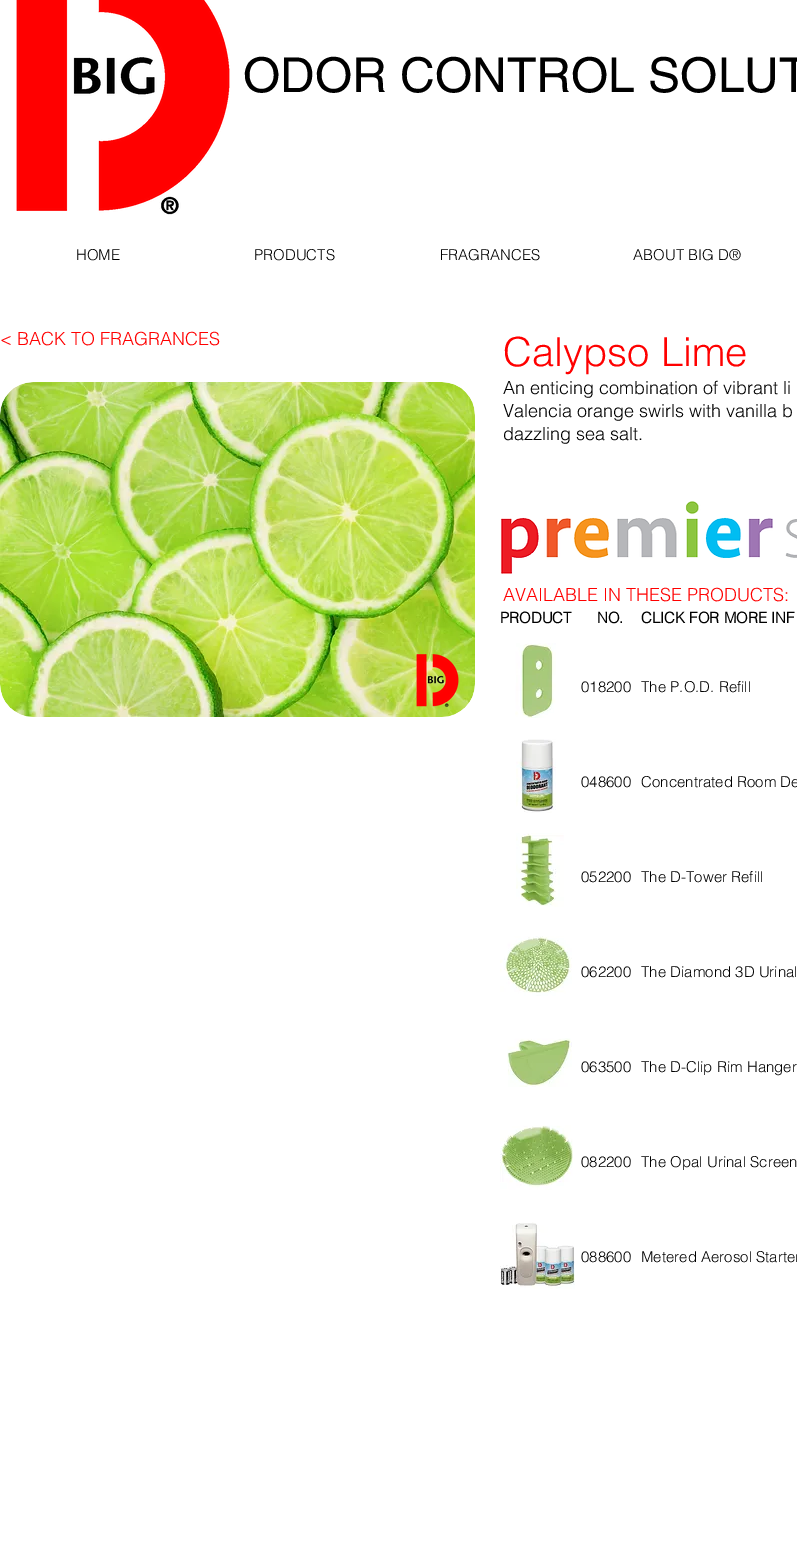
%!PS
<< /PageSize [797 1558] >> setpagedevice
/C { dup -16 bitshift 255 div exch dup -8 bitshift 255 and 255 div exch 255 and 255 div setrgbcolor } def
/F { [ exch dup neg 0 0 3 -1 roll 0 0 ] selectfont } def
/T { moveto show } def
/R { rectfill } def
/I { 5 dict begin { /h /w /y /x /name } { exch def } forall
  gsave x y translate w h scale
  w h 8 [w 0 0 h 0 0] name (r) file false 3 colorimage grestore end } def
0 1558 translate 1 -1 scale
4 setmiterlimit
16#FFFFFF C
0 0 797 1558 R
(1.rgb) 16 0 214 215 I
/helvetica-Regular 48 F
16#000000 C
(ODOR CONTROL SOLUT) 243 92 T
/helvetica-Light 15 F
(HOME) 76 260 T
(PRODUCTS) 254 260 T
(FRAGRANCES) 440 260 T
(ABOUT BIG D®) 633 260 T
/helvetica-Light 18 F
16#FF0000 C
(< BACK TO FRAGRANCES) 0 345 T
/helvetica-Light 40 F
(Calypso Lime) 503 366 T
/helvetica-Light 18 F
16#000000 C
(An enticing combination of vibrant li) 503 394 T
(Valencia orange swirls with vanilla b) 503 417 T
(dazzling sea salt.) 503 440 T
16#FF0000 C
(AVAILABLE IN THESE PRODUCTS:) 503 601 T
(2.rgb) 0 382 475 335 I
(3.rgb) 500 501 297 73 I
/helvetica-Bold 15 F
16#000000 C
(PRODUCT) 500 623 T
(NO.) 597 623 T
(CLICK FOR MORE INF) 641 623 T
(4.rgb) 416 654 43 54 I
(5.rgb) 515 643 41 75 I
/helvetica-Light 15 F
(018200) 581 692 T
(048600) 581 787 T
(052200) 581 882 T
(062200) 581 977 T
(063500) 581 1072 T
(082200) 581 1167 T
(088600) 581 1262 T
(The P.O.D. Refill) 641 692 T
(Concentrated Room De) 641 787 T
(The D-Tower Refill) 641 882 T
(The Diamond 3D Urinal) 641 977 T
(The D-Clip Rim Hanger) 641 1072 T
(The Opal Urinal Screen) 641 1167 T
(Metered Aerosol Starter) 641 1262 T
(6.rgb) 516 739 40 74 I
(7.rgb) 516 833 48 74 I
(8.rgb) 500 936 72 60 I
(9.rgb) 507 1038 65 49 I
(10.rgb) 500 1125 73 65 I
(11.rgb) 500 1222 75 67 I
showpage
